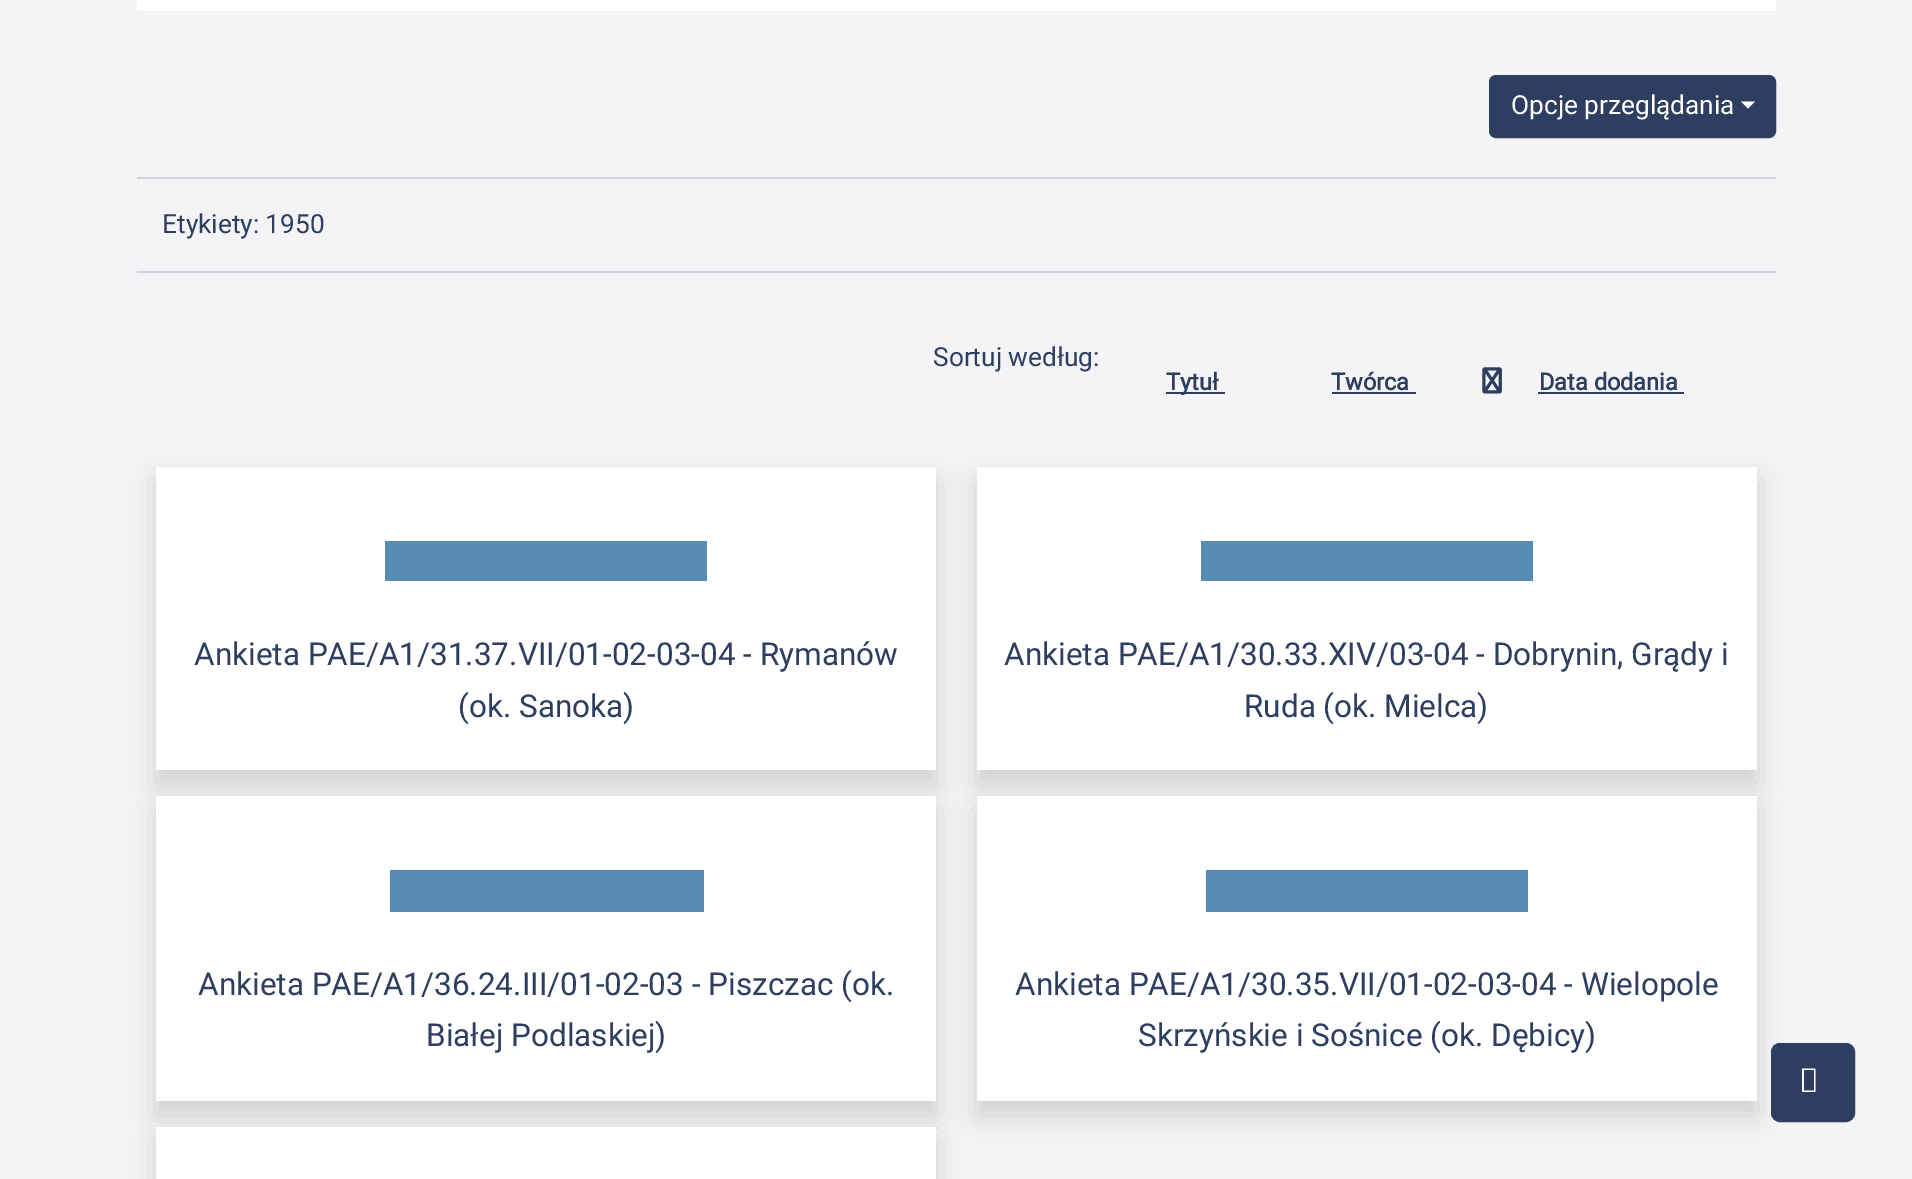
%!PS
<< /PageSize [1912 1179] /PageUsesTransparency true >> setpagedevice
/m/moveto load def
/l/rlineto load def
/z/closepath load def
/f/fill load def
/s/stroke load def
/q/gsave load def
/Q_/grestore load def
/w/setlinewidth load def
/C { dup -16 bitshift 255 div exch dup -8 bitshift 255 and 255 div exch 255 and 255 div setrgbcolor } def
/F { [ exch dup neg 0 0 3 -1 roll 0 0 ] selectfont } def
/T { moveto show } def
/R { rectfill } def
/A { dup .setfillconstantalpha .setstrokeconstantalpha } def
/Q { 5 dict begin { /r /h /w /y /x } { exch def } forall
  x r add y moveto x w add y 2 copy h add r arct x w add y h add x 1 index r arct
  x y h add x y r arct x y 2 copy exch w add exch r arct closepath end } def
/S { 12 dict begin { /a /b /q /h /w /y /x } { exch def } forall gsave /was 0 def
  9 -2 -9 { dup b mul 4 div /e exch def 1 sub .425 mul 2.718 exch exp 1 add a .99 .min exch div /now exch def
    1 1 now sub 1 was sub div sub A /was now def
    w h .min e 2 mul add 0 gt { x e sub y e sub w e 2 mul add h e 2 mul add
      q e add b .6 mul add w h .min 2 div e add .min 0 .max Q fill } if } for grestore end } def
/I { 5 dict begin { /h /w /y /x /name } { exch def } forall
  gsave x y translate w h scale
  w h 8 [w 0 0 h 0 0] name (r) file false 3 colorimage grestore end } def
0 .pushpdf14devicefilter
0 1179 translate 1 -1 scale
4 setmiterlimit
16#F4F4F6 C
0 0 1912 1179 R
16#FFFFFF C
137 0 1639 11 R
16#2D3E61 C
1490 76 285 61 6 Q q f Q_
2 w
s
/Roboto-Regular 26.25 F
16#FFFFFF C
(Opcje przeglądania) 1511 114 T
1741 101.5 m 14 0 l -7 7 l z f
16#CED4DA C
137 177 1639 2 R
137 271 1639 2 R
16#2D3E61 C
(Etykiety: 1950) 162 233 T
(Sortuj według:) 933 366 T
1166 392 59 2 R
/Roboto-Bold 23.5 F
(Tytuł) 1166 390 T
(Twórca) 1331 390 T
1332 392 84 2 R
(1.rgb) 1482 367 20 27 I
(Data dodania) 1539 390 T
1538 392 146 2 R
16#000000 C
156 481 780 303 0 13 .15 S
16#FFFFFF C
156 467 780 303 R
16#578CB5 C
385 541 322 40 R
/Roboto-Regular 31.5 F
16#2D3E61 C
(Ankieta PAE/A1/31.37.VII/01-02-03-04 - Rymanów) 194 665 T
(\(ok. Sanoka\)) 458 717 T
16#000000 C
977 481 780 303 0 13 .15 S
16#FFFFFF C
977 467 780 303 R
16#578CB5 C
1201 541 332 40 R
16#2D3E61 C
(Ankieta PAE/A1/30.33.XIV/03-04 - Dobrynin, Grądy i) 1004 665 T
(Ruda \(ok. Mielca\)) 1244 717 T
16#000000 C
156 810 780 305 0 13 .15 S
16#FFFFFF C
156 796 780 305 R
16#578CB5 C
390 870 314 42 R
16#2D3E61 C
(Ankieta PAE/A1/36.24.III/01-02-03 - Piszczac \(ok.) 198 995 T
(Białej Podlaskiej\)) 426 1046 T
16#000000 C
977 810 780 305 0 13 .15 S
16#FFFFFF C
977 796 780 305 R
16#578CB5 C
1206 870 322 42 R
16#2D3E61 C
(Ankieta PAE/A1/30.35.VII/01-02-03-04 - Wielopole) 1015 995 T
(Skrzyńskie i Sośnice \(ok. Dębicy\)) 1138 1046 T
16#000000 C
156 1141 780 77 0 13 .15 S
16#FFFFFF C
156 1127 780 52 R
16#2D3E61 C
1772 1044 82 77 8 Q q f Q_
s
16#FFFFFF C
1802 1092 m 0 -23.5 l 13.5 0 l 0 23.5 l z 1804 1090.5 m 10 0 l 0 -20.5 l -10 0 l z f
.poppdf14devicefilter showpage
